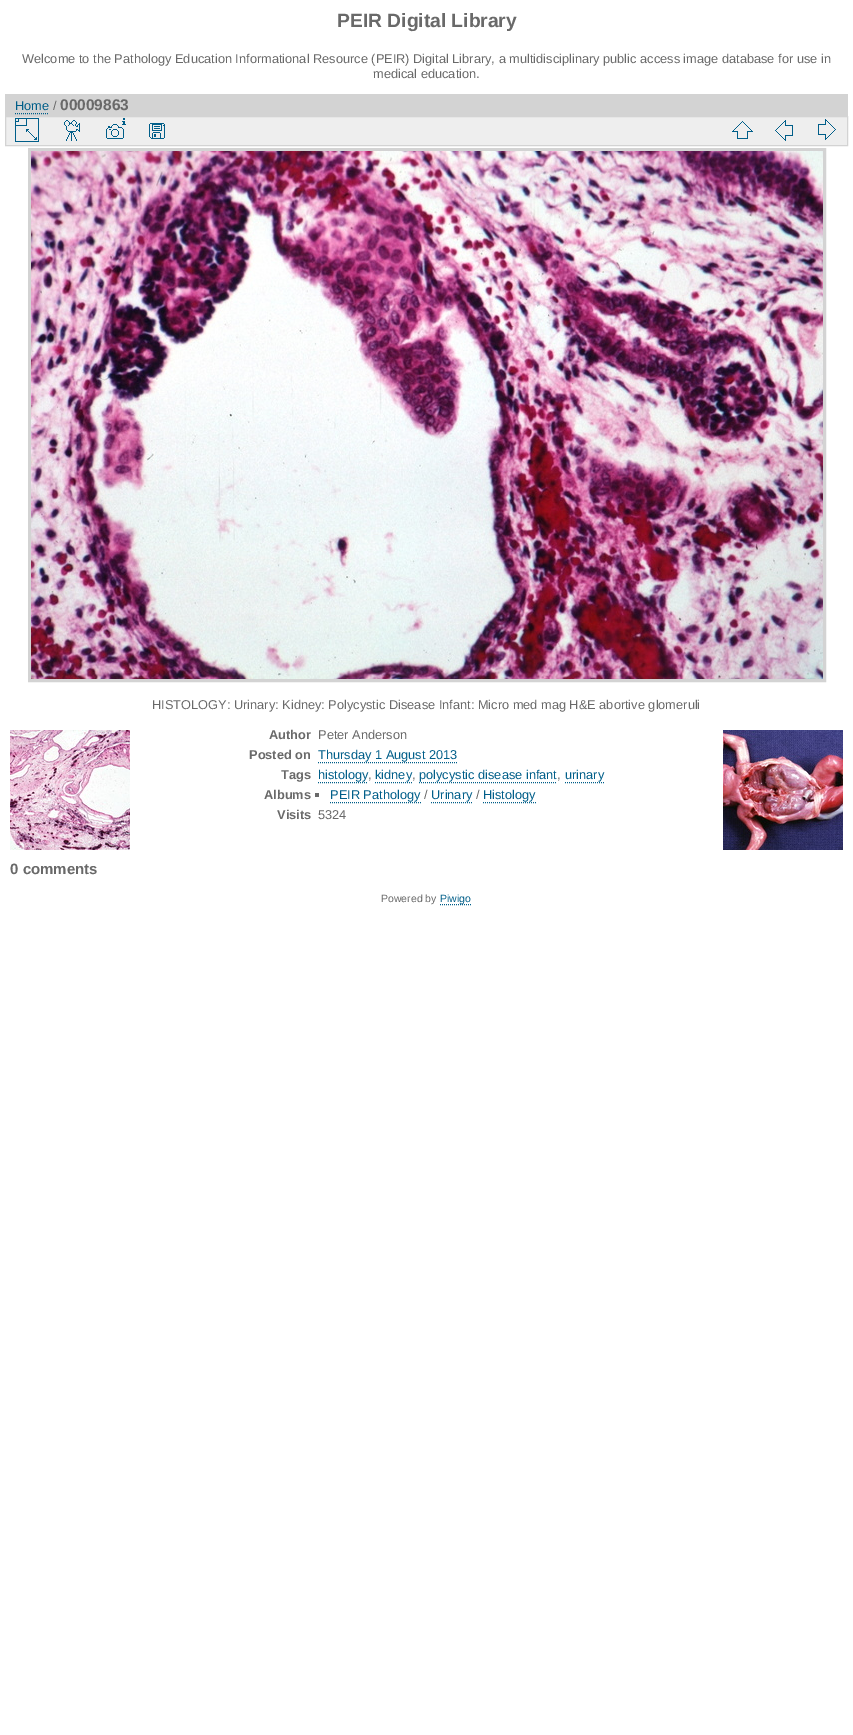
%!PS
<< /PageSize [853 1735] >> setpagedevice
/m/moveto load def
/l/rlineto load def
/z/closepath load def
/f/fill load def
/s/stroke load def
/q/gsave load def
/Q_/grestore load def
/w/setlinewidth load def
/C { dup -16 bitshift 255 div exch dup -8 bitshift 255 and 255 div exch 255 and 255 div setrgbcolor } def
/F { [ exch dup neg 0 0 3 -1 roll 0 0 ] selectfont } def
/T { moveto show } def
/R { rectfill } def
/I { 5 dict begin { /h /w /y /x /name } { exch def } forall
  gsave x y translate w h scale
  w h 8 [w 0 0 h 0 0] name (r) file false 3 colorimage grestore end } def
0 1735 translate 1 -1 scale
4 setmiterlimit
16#FFFFFF C
0 0 853 1735 R
/LiberationSans-Bold 19.25 F
16#696969 C
(PEIR Digital Library) 337 27 T
/LiberationSans-Regular 12.8 F
(Welcome to the Pathology Education Informational Resource \(PEIR\) Digital Library, a multidisciplinary public access image database for use in) 22 63 T
(medical education.) 373 78 T
16#D3D3D3 C
5 94 843 22 R
16#005E89 C
(Home) 15 110 T
[1 1] 0 setdash
15 113.5 m 34 0 l s
16#696969 C
(/) 53 110 T
/LiberationSans-Bold 15.5 F
(00009863) 60 110 T
16#EEEEEE C
5.5 116.5 m 842 0 l 0 29 l -842 0 l z q f Q_
16#D3D3D3 C
[] 0 setdash
s
(1.rgb) 15 118 24 24 I
(2.rgb) 64 120 16 21 I
(3.rgb) 106 118 20 21 I
(4.rgb) 149 123 16 16 I
(5.rgb) 732 121 21 18 I
(6.rgb) 775 120 18 21 I
(7.rgb) 818 119 18 21 I
3 w
29.5 149.5 795 531 rectstroke
(8.rgb) 31 151 792 528 I
/LiberationSans-Regular 12.8 F
16#696969 C
(HISTOLOGY: Urinary: Kidney: Polycystic Disease Infant: Micro med mag H&E abortive glomeruli) 152 709 T
/LiberationSans-Bold 12.8 F
(Author) 269 739 T
/LiberationSans-Regular 12.8 F
(Peter Anderson) 318 739 T
/LiberationSans-Bold 12.8 F
(Posted on) 249 759 T
/LiberationSans-Regular 12.8 F
16#005E89 C
(Thursday 1 August 2013) 318 759 T
1 w
[1 1] 0 setdash
318 762.5 m 139 0 l s
/LiberationSans-Bold 12.8 F
16#696969 C
(Tags) 281 779 T
/LiberationSans-Regular 12.8 F
16#005E89 C
(histology) 318 779 T
318 782.5 m 50 0 l s
16#696969 C
(,) 368 779 T
16#005E89 C
(kidney) 375 779 T
375 782.5 m 37 0 l s
16#696969 C
(,) 412 779 T
16#005E89 C
(polycystic disease infant) 419 779 T
419 782.5 m 138 0 l s
16#696969 C
(,) 557 779 T
16#005E89 C
(urinary) 565 779 T
565 782.5 m 39 0 l s
/LiberationSans-Bold 12.8 F
16#696969 C
(Albums) 264 799 T
315 793 4 4 R
/LiberationSans-Regular 12.8 F
16#005E89 C
(PEIR Pathology) 330 799 T
330 802.5 m 91 0 l s
16#696969 C
(/) 424 799 T
16#005E89 C
(Urinary) 431 799 T
431 802.5 m 42 0 l s
16#696969 C
(/) 476 799 T
16#005E89 C
(Histology) 483 799 T
483 802.5 m 53 0 l s
/LiberationSans-Bold 12.8 F
16#696969 C
(Visits) 277 819 T
/LiberationSans-Regular 12.8 F
(5324) 318 819 T
(9.rgb) 10 730 120 120 I
(10.rgb) 723 730 120 120 I
/LiberationSans-Bold 15 F
(0 comments) 10 874 T
/LiberationSans-Regular 10.5 F
(Powered by) 381 902 T
16#005E89 C
440 904.5 m 32 0 l s
(Piwigo) 440 902 T
showpage
